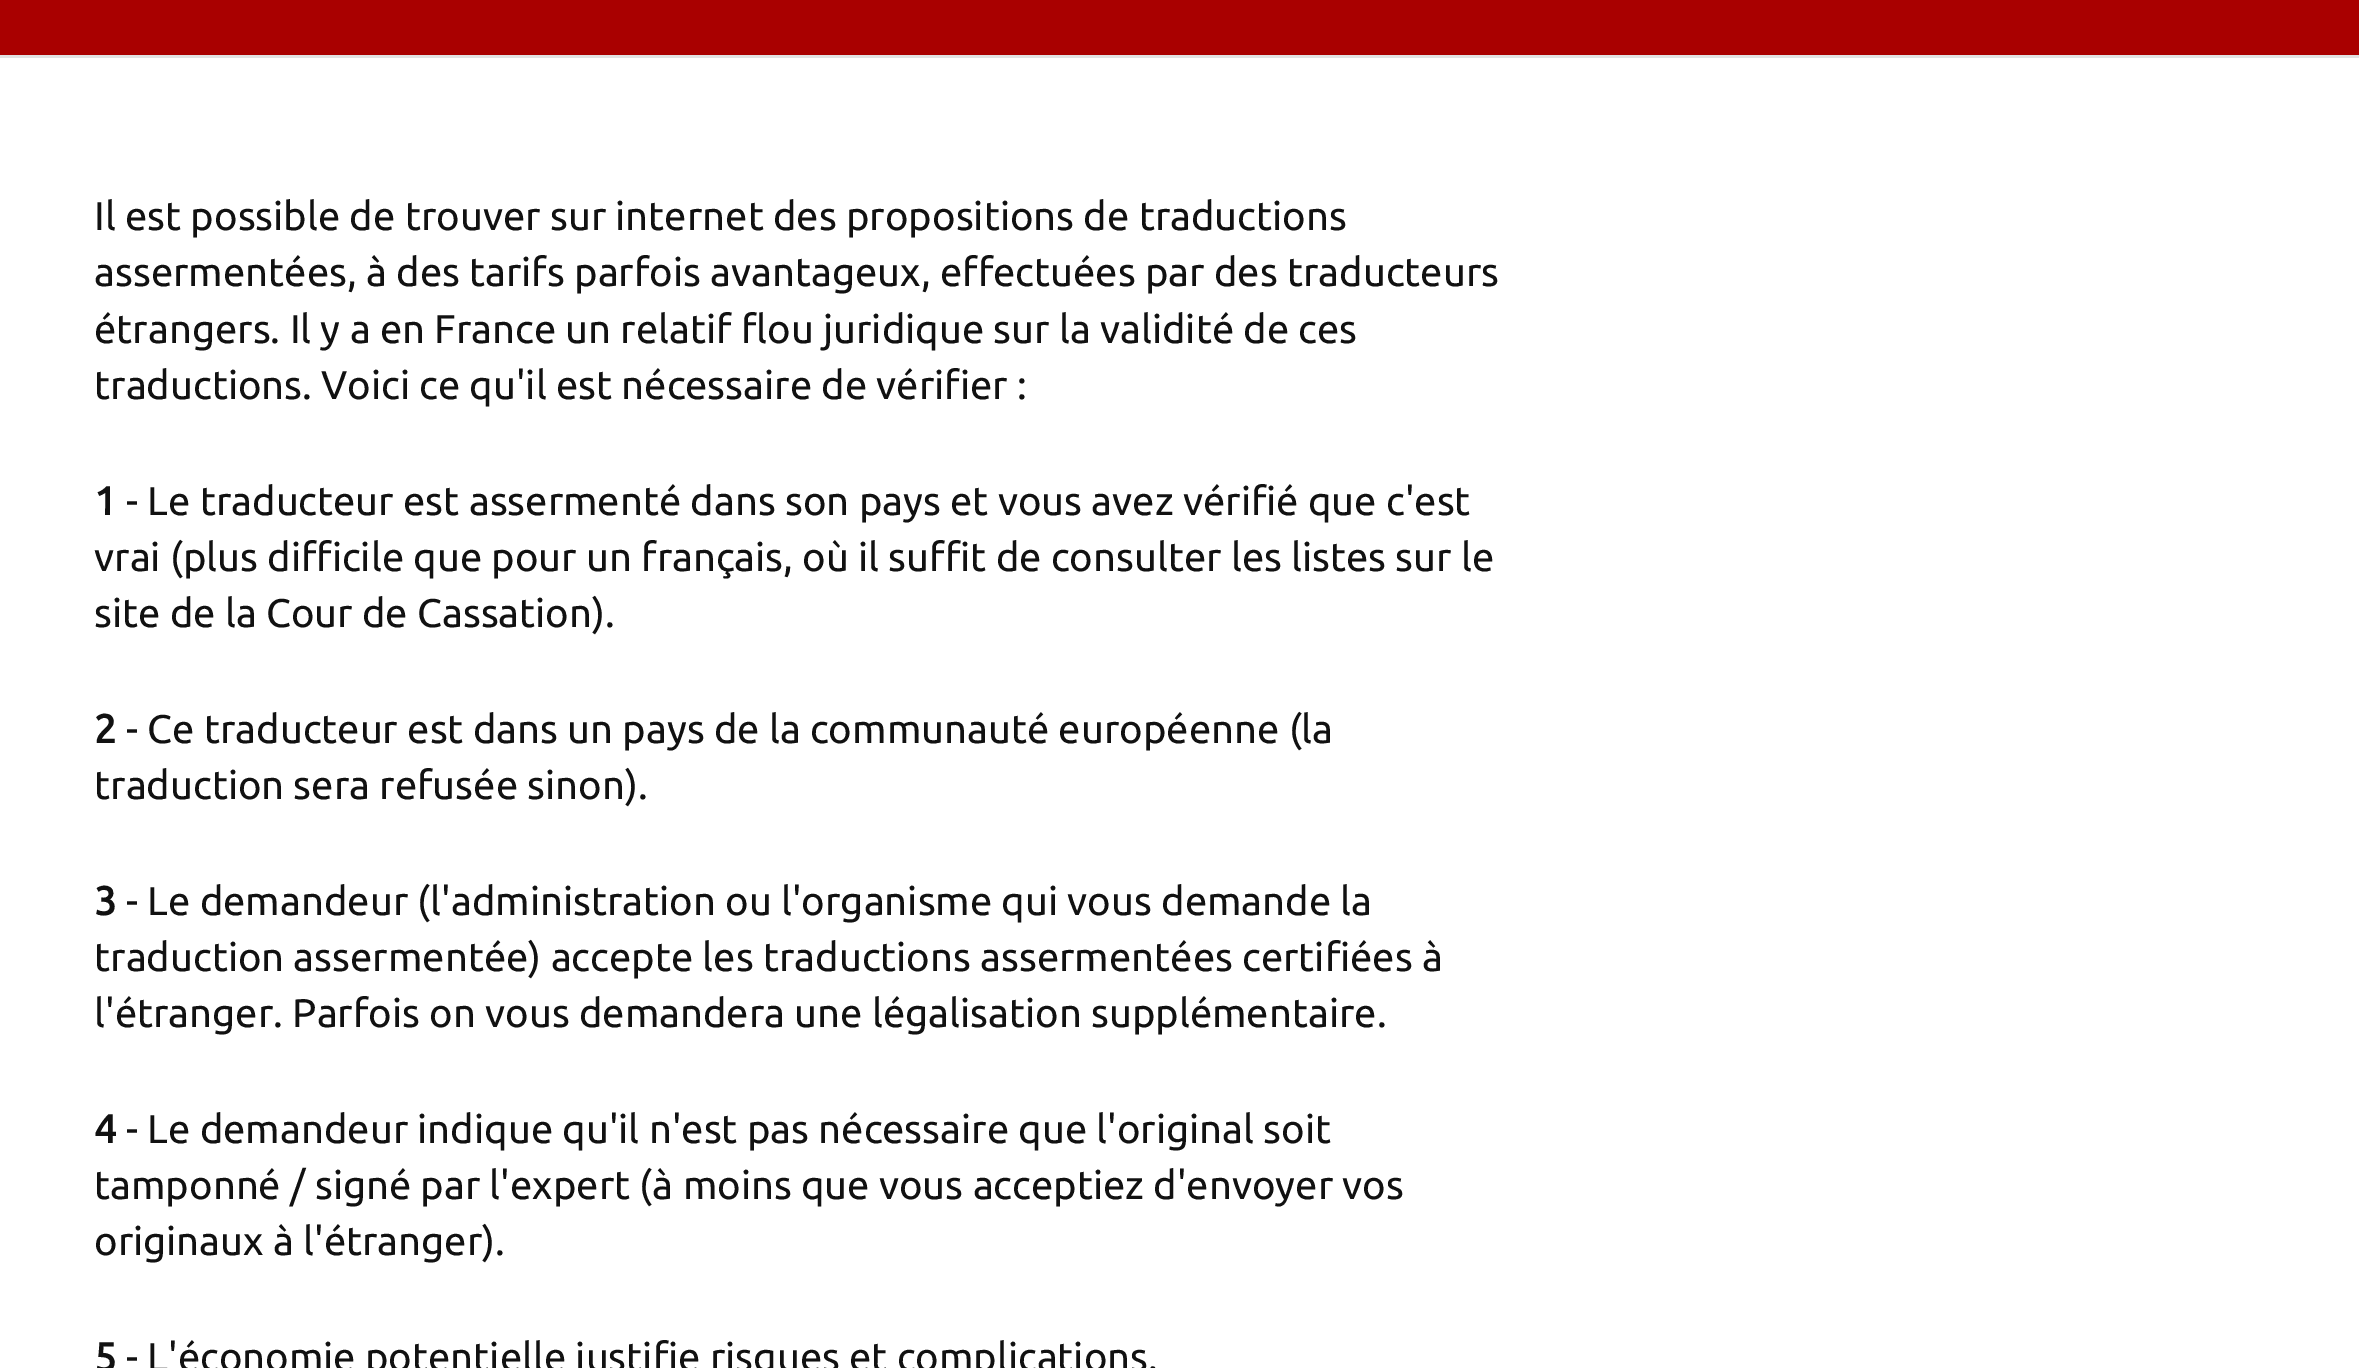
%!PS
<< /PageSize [2359 1368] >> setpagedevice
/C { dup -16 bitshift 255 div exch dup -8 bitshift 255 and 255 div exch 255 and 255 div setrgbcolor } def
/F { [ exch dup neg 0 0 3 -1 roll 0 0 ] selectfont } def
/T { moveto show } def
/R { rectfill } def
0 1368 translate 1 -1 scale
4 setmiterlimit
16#FFFFFF C
0 0 2359 1368 R
16#A90000 C
0 0 2359 55 R
16#E2E2E2 C
0 55 2359 3 R
/Ubuntu-Regular 40 F
16#111111 C
(Il est possible de trouver sur internet des propositions de traductions) 94 230 T
(assermentées, à des tarifs parfois avantageux, effectuées par des traducteurs) 94 286 T
(étrangers. Il y a en France un relatif flou juridique sur la validité de ces) 94 343 T
(traductions. Voici ce qu'il est nécessaire de vérifier :) 94 399 T
/Ubuntu-Bold 40 F
(1) 94 515 T
/Ubuntu-Regular 40 F
(- Le traducteur est assermenté dans son pays et vous avez vérifié que c'est) 126 515 T
(vrai \(plus difficile que pour un français, où il suffit de consulter les listes sur le) 94 571 T
(site de la Cour de Cassation\).) 94 627 T
/Ubuntu-Bold 40 F
(2) 94 743 T
/Ubuntu-Regular 40 F
(- Ce traducteur est dans un pays de la communauté européenne \(la) 126 743 T
(traduction sera refusée sinon\).) 94 799 T
/Ubuntu-Bold 40 F
(3) 94 915 T
/Ubuntu-Regular 40 F
(- Le demandeur \(l'administration ou l'organisme qui vous demande la) 126 915 T
(traduction assermentée\) accepte les traductions assermentées certifiées à) 94 971 T
(l'étranger. Parfois on vous demandera une légalisation supplémentaire.) 94 1027 T
/Ubuntu-Bold 40 F
(4) 94 1143 T
/Ubuntu-Regular 40 F
(- Le demandeur indique qu'il n'est pas nécessaire que l'original soit) 126 1143 T
(tamponné / signé par l'expert \(à moins que vous acceptiez d'envoyer vos) 94 1199 T
(originaux à l'étranger\).) 94 1255 T
/Ubuntu-Bold 40 F
(5) 94 1371 T
/Ubuntu-Regular 40 F
(- L'économie potentielle justifie risques et complications.) 126 1371 T
showpage
